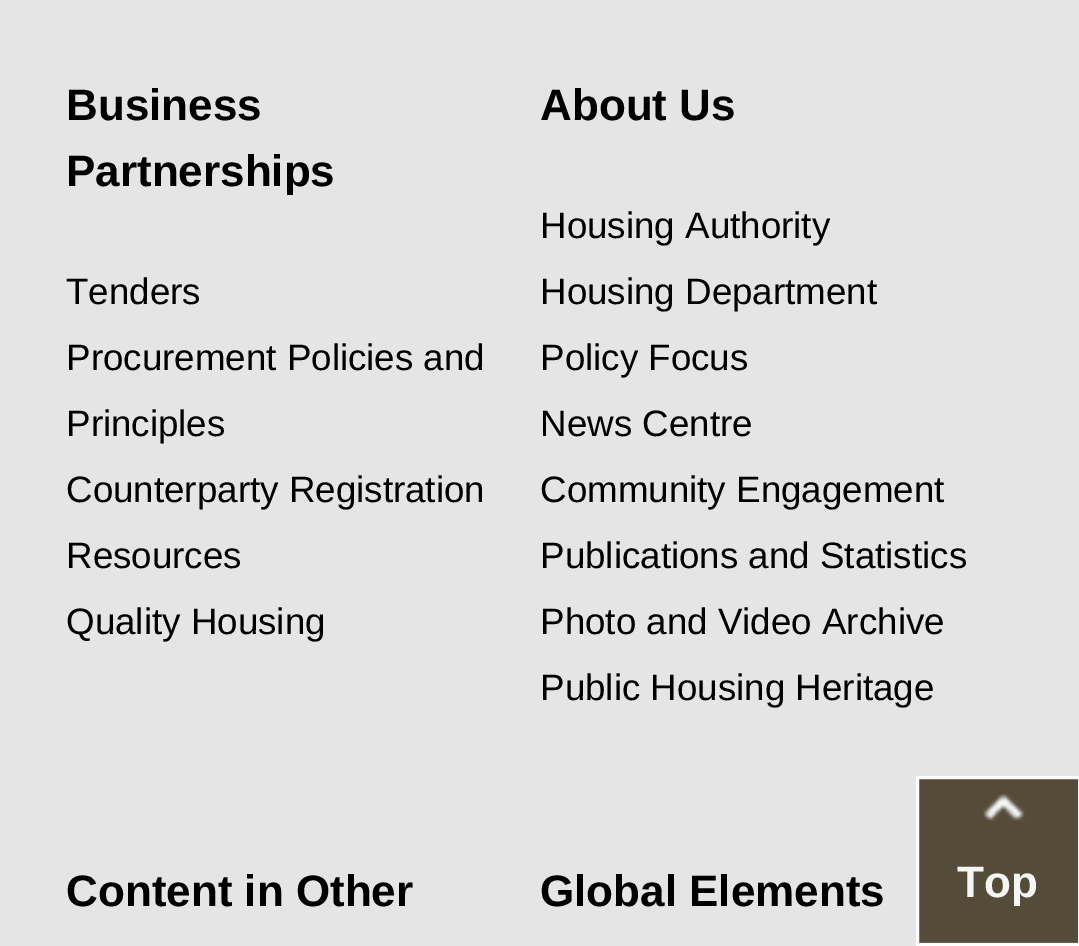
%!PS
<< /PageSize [1079 946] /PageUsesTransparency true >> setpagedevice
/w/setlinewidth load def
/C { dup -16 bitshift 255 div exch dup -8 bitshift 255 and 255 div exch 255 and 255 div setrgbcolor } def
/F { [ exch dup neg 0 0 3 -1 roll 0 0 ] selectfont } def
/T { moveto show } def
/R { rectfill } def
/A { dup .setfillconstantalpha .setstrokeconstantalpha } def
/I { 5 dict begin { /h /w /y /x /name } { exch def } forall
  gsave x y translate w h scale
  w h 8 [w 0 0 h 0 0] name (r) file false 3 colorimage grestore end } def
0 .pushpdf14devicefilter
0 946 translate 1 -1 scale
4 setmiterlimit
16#E5E5E6 C
0 0 1079 946 R
/LiberationSans-Bold 44 F
16#000000 C
(Business) 66 120 T
(Partnerships) 66 186 T
/LiberationSans-Regular 36.75 F
(Tenders) 66 304 T
(Procurement Policies and) 66 370 T
(Principles) 66 436 T
(Counterparty Registration) 66 502 T
(Resources) 66 568 T
(Quality Housing) 66 634 T
/LiberationSans-Bold 44 F
(About Us) 540 120 T
/LiberationSans-Regular 36.75 F
(Housing Authority) 540 238 T
(Housing Department) 540 304 T
(Policy Focus) 540 370 T
(News Centre) 540 436 T
(Community Engagement) 540 502 T
(Publications and Statistics) 540 568 T
(Photo and Video Archive) 540 634 T
(Public Housing Heritage) 540 700 T
/LiberationSans-Bold 44 F
(Content in Other) 66 906 T
(Global Elements) 540 906 T
(1.rgb) 917 777 162 167 I
0.95 A
16#FFFFFF C
3 w
917.5 777.5 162 167 rectstroke
1 A
16#F6F6F5 C
(Top) 957 897 T
.poppdf14devicefilter showpage
